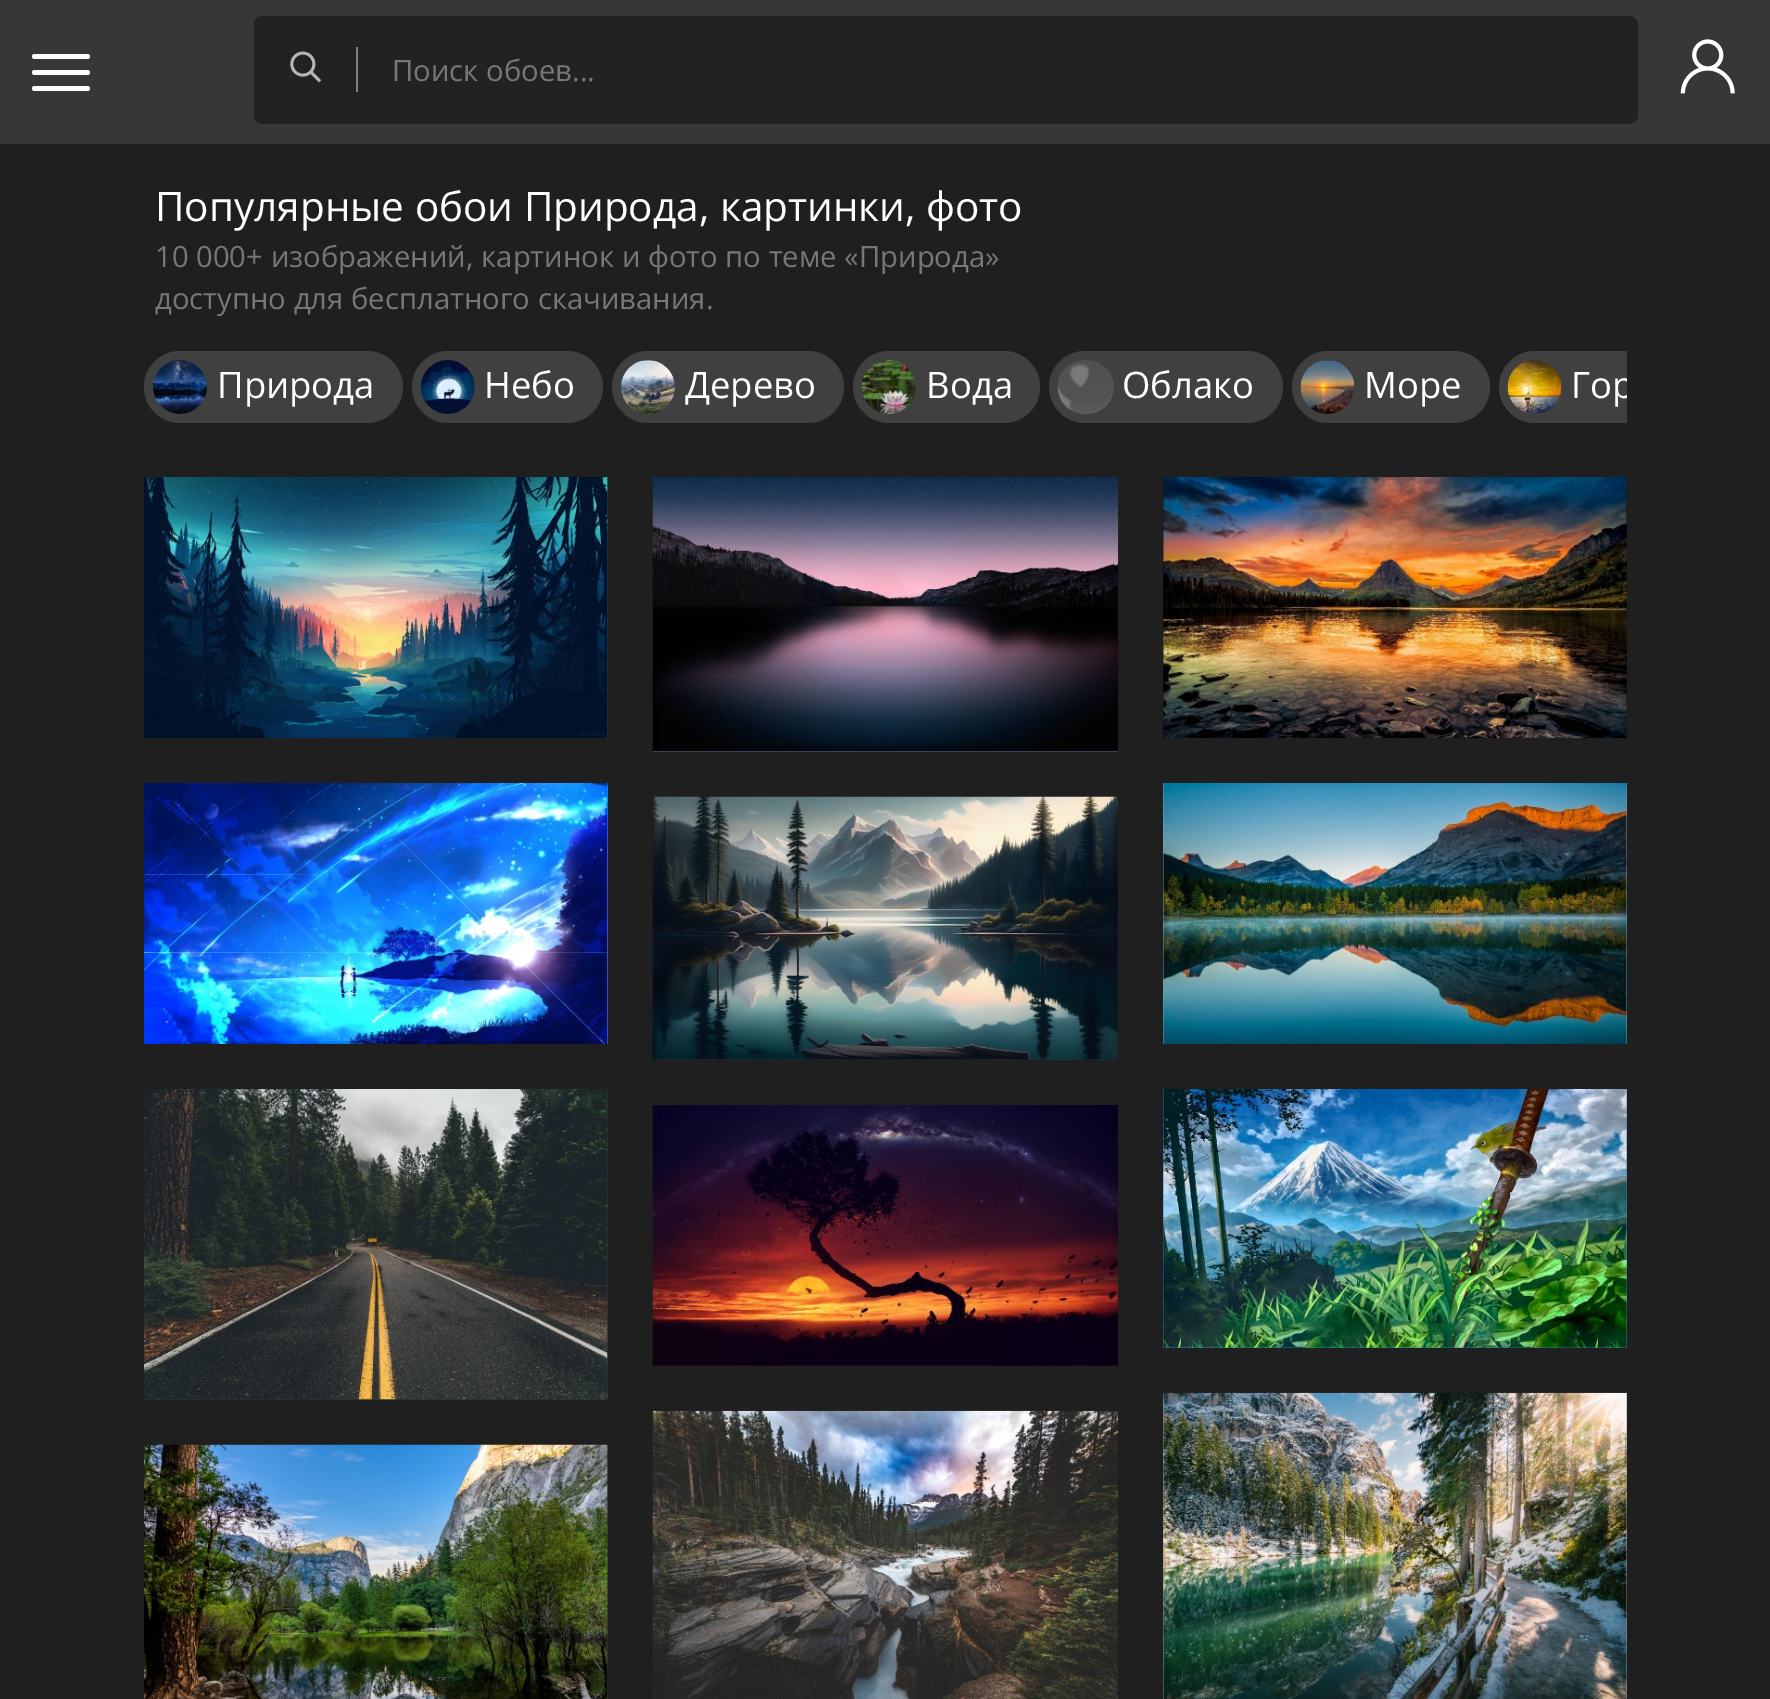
%!PS
<< /PageSize [1770 1699] >> setpagedevice
/m/moveto load def
/l/rlineto load def
/c/rcurveto load def
/z/closepath load def
/f/fill load def
/q/gsave load def
/Q_/grestore load def
/C { dup -16 bitshift 255 div exch dup -8 bitshift 255 and 255 div exch 255 and 255 div setrgbcolor } def
/F { [ exch dup neg 0 0 3 -1 roll 0 0 ] selectfont } def
/T { moveto show } def
/R { rectfill } def
/Q { 5 dict begin { /r /h /w /y /x } { exch def } forall
  x r add y moveto x w add y 2 copy h add r arct x w add y h add x 1 index r arct
  x y h add x y r arct x y 2 copy exch w add exch r arct closepath end } def
/I { 5 dict begin { /h /w /y /x /name } { exch def } forall
  gsave x y translate w h scale
  w h 8 [w 0 0 h 0 0] name (r) file false 3 colorimage grestore end } def
0 1699 translate 1 -1 scale
4 setmiterlimit
16#1F1F1F C
0 0 1770 1699 R
16#373737 C
0 0 1770 144 R
16#FFFFFF C
32 54 58 5 2.5 Q f
32 70 58 5 2.5 Q f
32 86 58 5 2.5 Q f
16#222222 C
254 16 1384 108 9 Q f
(1.rgb) 290 51 32 32 I
16#7E7E7E C
356 47 2 45 R
/OpenSans-Regular 29.25 F
16#777777 C
(Поиск обоев...) 392 81 T
(2.rgb) 1680 39 55 55 I
/OpenSans-Regular 40.5 F
16#FFFFFF C
(Популярные обои Природа, картинки, фото) 155 221 T
/OpenSans-Regular 29.25 F
16#777777 C
(10 000+ изображений, картинок и фото по теме «Природа») 155 267 T
(доступно для бесплатного скачивания.) 155 309 T
16#404040 C
144 351 259 72 36 Q f
(3.rgb) 153 360 54 54 I
/OpenSans-Regular 36.5 F
16#FFFFFF C
(Природа) 217 398 T
16#404040 C
412 351 191 72 36 Q f
(4.rgb) 421 360 54 54 I
16#FFFFFF C
(Небо) 484 398 T
16#404040 C
612 351 232 72 36 Q f
(5.rgb) 621 360 54 54 I
16#FFFFFF C
(Дерево) 685 398 T
16#404040 C
853 351 187 72 36 Q f
(6.rgb) 862 360 54 54 I
16#FFFFFF C
(Вода) 926 398 T
16#404040 C
1049 351 234 72 36 Q f
(7.rgb) 1057 360 57 54 I
16#FFFFFF C
(Облако) 1122 398 T
16#404040 C
1292 351 198 72 36 Q f
(8.rgb) 1300 360 55 54 I
16#FFFFFF C
(Море) 1364 398 T
16#404040 C
1535 351 m 92 0 l 0 72 l -92 0 l -20 0 -36 -16 -36 -36 c 0 -20 16 -36 36 -36 c z f
(9.rgb) 1507 360 55 54 I
q
144 351 1483 81 rectclip
16#FFFFFF C
(Гор) 1571 398 T
Q_
16#133855 C
607 477 1 261 R
(10.rgb) 144 477 464 261 I
16#157AF6 C
607 783 1 261 R
(11.rgb) 144 783 464 261 I
16#2C3130 C
144 1089 464 311 R
(12.rgb) 144 1089 464 311 I
16#283D17 C
607 1445 1 254 R
(13.rgb) 144 1444 464 255 I
16#515570 C
653 751 465 1 R
(14.rgb) 652 477 467 275 I
16#2E373A C
653 1059 465 1 R
(15.rgb) 652 796 466 264 I
16#3B1020 C
653 1365 465 1 R
(16.rgb) 652 1105 467 261 I
(17.rgb) 652 1410 467 289 I
16#151211 C
1163 477 464 261 R
(18.rgb) 1163 477 464 261 I
16#74ABBE C
1163 783 464 261 R
(19.rgb) 1163 783 464 261 I
16#337EB5 C
1163 1089 464 259 R
(20.rgb) 1163 1089 464 259 I
16#9C9D99 C
1163 1393 464 306 R
(21.rgb) 1163 1392 464 307 I
showpage
